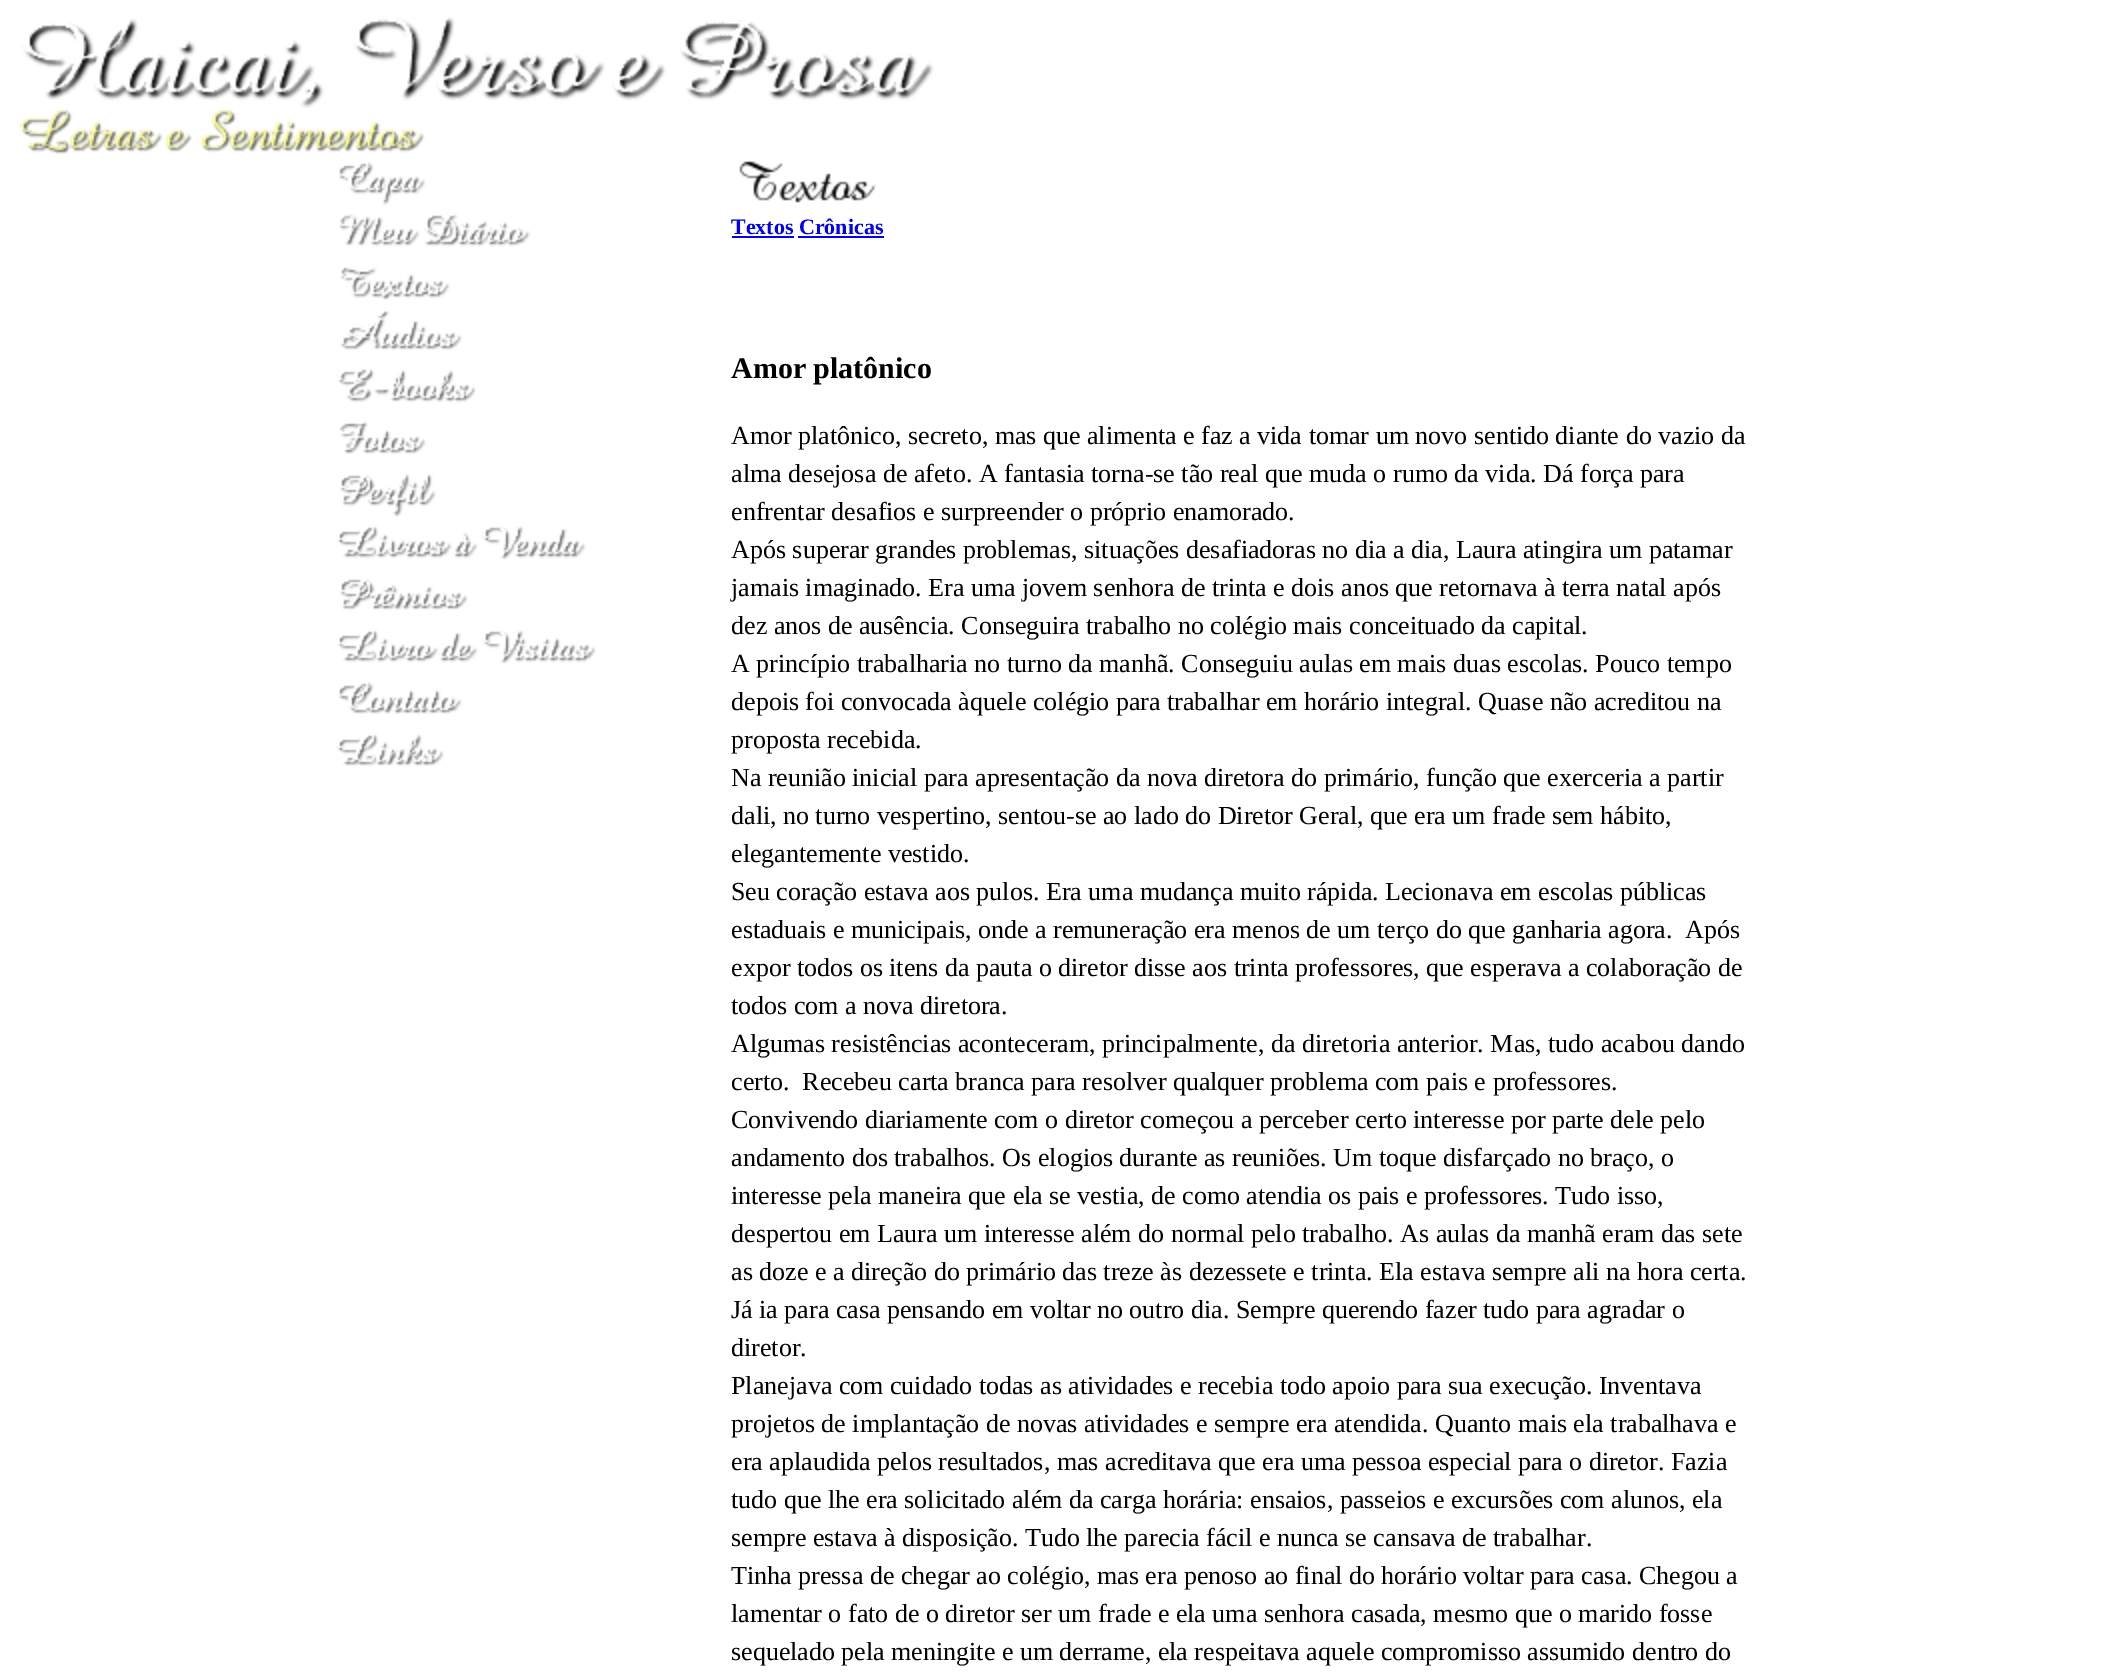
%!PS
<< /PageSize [2101 1674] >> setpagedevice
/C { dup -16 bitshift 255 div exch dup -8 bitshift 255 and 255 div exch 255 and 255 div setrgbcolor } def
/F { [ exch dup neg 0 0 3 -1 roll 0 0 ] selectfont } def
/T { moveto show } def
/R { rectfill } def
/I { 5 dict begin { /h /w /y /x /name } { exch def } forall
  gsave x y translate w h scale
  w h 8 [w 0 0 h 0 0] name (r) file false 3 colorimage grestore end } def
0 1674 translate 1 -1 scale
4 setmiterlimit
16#FFFFFF C
0 0 2101 1674 R
(1.rgb) 22 16 912 92 I
(2.rgb) 19 110 406 44 I
(3.rgb) 338 162 88 44 I
(4.rgb) 339 213 192 34 I
(5.rgb) 340 267 110 33 I
(6.rgb) 340 310 122 40 I
(7.rgb) 336 368 140 35 I
(8.rgb) 339 421 87 33 I
(9.rgb) 339 473 97 44 I
(10.rgb) 337 526 249 34 I
(11.rgb) 339 578 129 32 I
(12.rgb) 337 630 259 34 I
(13.rgb) 338 682 124 32 I
(14.rgb) 336 734 108 32 I
(15.rgb) 739 160 137 43 I
/LiberationSerif-Bold 22 F
16#0000EE C
(Textos Crônicas) 731 234 T
732 236 62 2 R
798 236 86 2 R
/LiberationSerif-Bold 30 F
16#000000 C
(Amor platônico) 731 378 T
/LiberationSerif-Regular 26 F
(Amor platônico, secreto, mas que alimenta e faz a vida tomar um novo sentido diante do vazio da) 731 444 T
(alma desejosa de afeto. A fantasia torna-se tão real que muda o rumo da vida. Dá força para) 731 482 T
(enfrentar desafios e surpreender o próprio enamorado.) 731 520 T
(Após superar grandes problemas, situações desafiadoras no dia a dia, Laura atingira um patamar) 731 558 T
(jamais imaginado. Era uma jovem senhora de trinta e dois anos que retornava à terra natal após) 731 596 T
(dez anos de ausência. Conseguira trabalho no colégio mais conceituado da capital.) 731 634 T
(A princípio trabalharia no turno da manhã. Conseguiu aulas em mais duas escolas. Pouco tempo) 731 672 T
(depois foi convocada àquele colégio para trabalhar em horário integral. Quase não acreditou na) 731 710 T
(proposta recebida.) 731 748 T
(Na reunião inicial para apresentação da nova diretora do primário, função que exerceria a partir) 731 786 T
(dali, no turno vespertino, sentou-se ao lado do Diretor Geral, que era um frade sem hábito,) 731 824 T
(elegantemente vestido.) 731 862 T
(Seu coração estava aos pulos. Era uma mudança muito rápida. Lecionava em escolas públicas) 731 900 T
(estaduais e municipais, onde a remuneração era menos de um terço do que ganharia agora.  Após) 731 938 T
(expor todos os itens da pauta o diretor disse aos trinta professores, que esperava a colaboração de) 731 976 T
(todos com a nova diretora.) 731 1014 T
(Algumas resistências aconteceram, principalmente, da diretoria anterior. Mas, tudo acabou dando) 731 1052 T
(certo.  Recebeu carta branca para resolver qualquer problema com pais e professores.) 731 1090 T
(Convivendo diariamente com o diretor começou a perceber certo interesse por parte dele pelo) 731 1128 T
(andamento dos trabalhos. Os elogios durante as reuniões. Um toque disfarçado no braço, o) 731 1166 T
(interesse pela maneira que ela se vestia, de como atendia os pais e professores. Tudo isso,) 731 1204 T
(despertou em Laura um interesse além do normal pelo trabalho. As aulas da manhã eram das sete) 731 1242 T
(as doze e a direção do primário das treze às dezessete e trinta. Ela estava sempre ali na hora certa.) 731 1280 T
(Já ia para casa pensando em voltar no outro dia. Sempre querendo fazer tudo para agradar o) 731 1318 T
(diretor.) 731 1356 T
(Planejava com cuidado todas as atividades e recebia todo apoio para sua execução. Inventava) 731 1394 T
(projetos de implantação de novas atividades e sempre era atendida. Quanto mais ela trabalhava e) 731 1432 T
(era aplaudida pelos resultados, mas acreditava que era uma pessoa especial para o diretor. Fazia) 731 1470 T
(tudo que lhe era solicitado além da carga horária: ensaios, passeios e excursões com alunos, ela) 731 1508 T
(sempre estava à disposição. Tudo lhe parecia fácil e nunca se cansava de trabalhar.) 731 1546 T
(Tinha pressa de chegar ao colégio, mas era penoso ao final do horário voltar para casa. Chegou a) 731 1584 T
(lamentar o fato de o diretor ser um frade e ela uma senhora casada, mesmo que o marido fosse) 731 1622 T
(sequelado pela meningite e um derrame, ela respeitava aquele compromisso assumido dentro do) 731 1660 T
showpage
